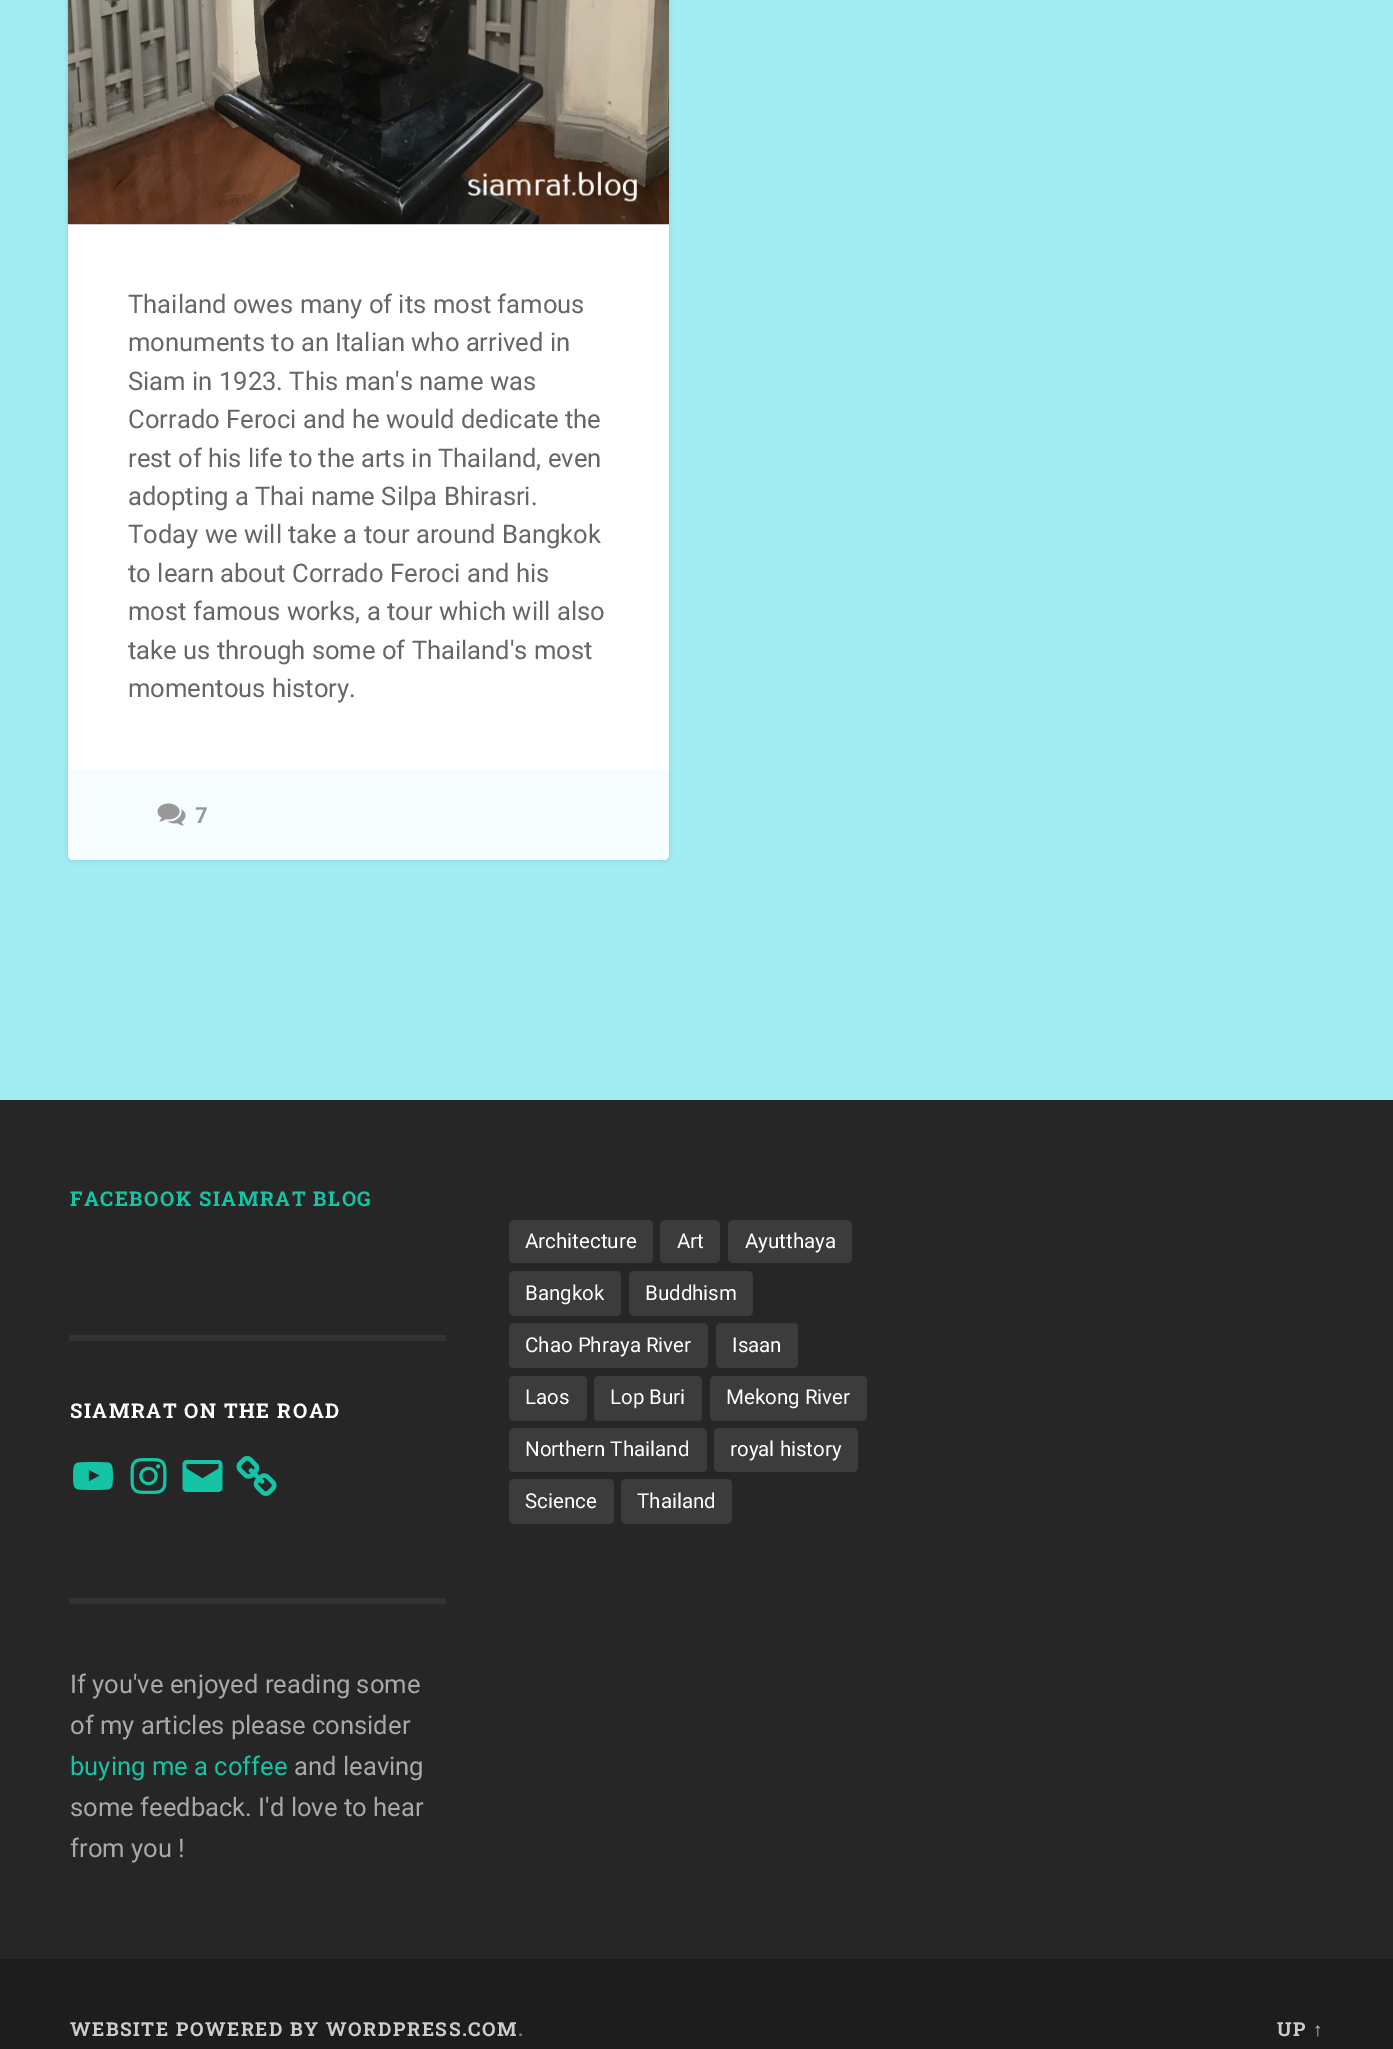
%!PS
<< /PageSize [1393 2049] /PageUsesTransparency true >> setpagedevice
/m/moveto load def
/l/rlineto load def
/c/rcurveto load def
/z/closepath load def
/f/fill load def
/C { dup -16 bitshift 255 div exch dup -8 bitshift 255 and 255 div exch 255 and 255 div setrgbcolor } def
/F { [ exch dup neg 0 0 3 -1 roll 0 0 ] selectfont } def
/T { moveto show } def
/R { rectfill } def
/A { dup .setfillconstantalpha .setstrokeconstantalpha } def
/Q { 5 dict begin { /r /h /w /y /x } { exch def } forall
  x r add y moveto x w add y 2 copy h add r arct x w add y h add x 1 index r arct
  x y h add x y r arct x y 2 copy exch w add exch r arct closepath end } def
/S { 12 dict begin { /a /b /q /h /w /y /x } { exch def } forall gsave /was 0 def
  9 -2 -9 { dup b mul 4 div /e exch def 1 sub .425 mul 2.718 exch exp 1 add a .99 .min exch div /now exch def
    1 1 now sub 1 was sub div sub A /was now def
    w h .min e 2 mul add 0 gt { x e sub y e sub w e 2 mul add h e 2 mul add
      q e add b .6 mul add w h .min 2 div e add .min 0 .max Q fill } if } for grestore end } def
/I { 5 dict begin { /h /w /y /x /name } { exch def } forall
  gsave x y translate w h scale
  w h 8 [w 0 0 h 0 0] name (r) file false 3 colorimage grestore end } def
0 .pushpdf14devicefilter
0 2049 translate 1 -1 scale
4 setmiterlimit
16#A2ECF2 C
0 0 1393 2049 R
16#000000 C
68 -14 601 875 5 3 .1 S
16#FFFFFF C
68 -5 601 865 5 Q f
(1.rgb) 67 0 602 225 I
/Roboto-Regular 25.6 F
16#666666 C
(Thailand owes many of its most famous) 128 313 T
(monuments to an Italian who arrived in) 128 351 T
(Siam in 1923. This man's name was) 128 390 T
(Corrado Feroci and he would dedicate the) 128 428 T
(rest of his life to the arts in Thailand, even) 128 467 T
(adopting a Thai name Silpa Bhirasri.) 128 505 T
(Today we will take a tour around Bangkok) 128 543 T
(to learn about Corrado Feroci and his) 128 582 T
(most famous works, a tour which will also) 128 620 T
(take us through some of Thailand's most) 128 659 T
(momentous history.) 128 697 T
0.1 A
16#A2ECF2 C
68 770 m 601 0 l 0 85 l 0 3 -2 5 -5 5 c -591 0 l -3 0 -5 -2 -5 -5 c z f
1 A
(2.rgb) 157 803 29 23 I
/Roboto-Bold 22 F
16#999999 C
(7) 195 823 T
16#262626 C
0 1100 1393 859 R
/RobotoSlab-Bold 20.25 F
16#13C4A5 C
70 1206 m 1.5 0 (FACEBOOK SIAMRAT BLOG) ashow
16#333333 C
69 1335 377 6 R
16#FFFFFF C
70 1418 m 1.5 0 (SIAMRAT ON THE ROAD) ashow
(3.rgb) 73 1461 40 30 I
(4.rgb) 130 1458 37 36 I
(5.rgb) 182 1460 41 32 I
(6.rgb) 236 1456 41 40 I
16#333333 C
69 1598 377 6 R
/Roboto-Regular 25.6 F
16#A8A8A8 C
(If you've enjoyed reading some) 70 1693 T
(of my articles please consider) 70 1734 T
16#13C4A5 C
(buying me a coffee) 70 1775 T
16#A8A8A8 C
(and leaving) 294 1775 T
(some feedback. I'd love to hear) 70 1816 T
(from you !) 70 1857 T
16#3C3C3C C
509 1220 144 43 5 Q f
/Roboto-Regular 20.5 F
16#FFFFFF C
(Architecture) 525 1248 T
16#3C3C3C C
660 1220 60 43 5 Q f
16#FFFFFF C
(Art) 677 1248 T
16#3C3C3C C
728 1220 124 43 5 Q f
16#FFFFFF C
(Ayutthaya) 745 1248 T
16#3C3C3C C
509 1271 112 45 5 Q f
16#FFFFFF C
(Bangkok) 525 1300 T
16#3C3C3C C
629 1271 124 45 5 Q f
16#FFFFFF C
(Buddhism) 645 1300 T
16#3C3C3C C
509 1323 199 45 5 Q f
16#FFFFFF C
(Chao Phraya River) 525 1352 T
16#3C3C3C C
716 1323 82 45 5 Q f
16#FFFFFF C
(Isaan) 732 1352 T
16#3C3C3C C
509 1376 78 45 5 Q f
16#FFFFFF C
(Laos) 525 1404 T
16#3C3C3C C
594 1376 108 45 5 Q f
16#FFFFFF C
(Lop Buri) 610 1404 T
16#3C3C3C C
710 1376 157 45 5 Q f
16#FFFFFF C
(Mekong River) 726 1404 T
16#3C3C3C C
509 1428 198 44 5 Q f
16#FFFFFF C
(Northern Thailand) 525 1456 T
16#3C3C3C C
714 1428 144 44 5 Q f
16#FFFFFF C
(royal history) 730 1456 T
16#3C3C3C C
509 1479 105 45 5 Q f
16#FFFFFF C
(Science) 525 1508 T
16#3C3C3C C
621 1479 111 45 5 Q f
16#FFFFFF C
(Thailand) 637 1508 T
16#1D1D1D C
0 1959 1393 90 R
/RobotoSlab-Bold 19.2 F
16#CCCCCC C
70 2036 m 1.5 0 (WEBSITE POWERED BY WORDPRESS.COM) ashow
16#767676 C
518 2036 m 1.5 0 (.) ashow
16#CCCCCC C
1277 2036 m 1.5 0 (UP) ashow
/LiberationSans-Bold 19.2 F
1313 2036 m 1.5 0 (↑) ashow
.poppdf14devicefilter showpage
